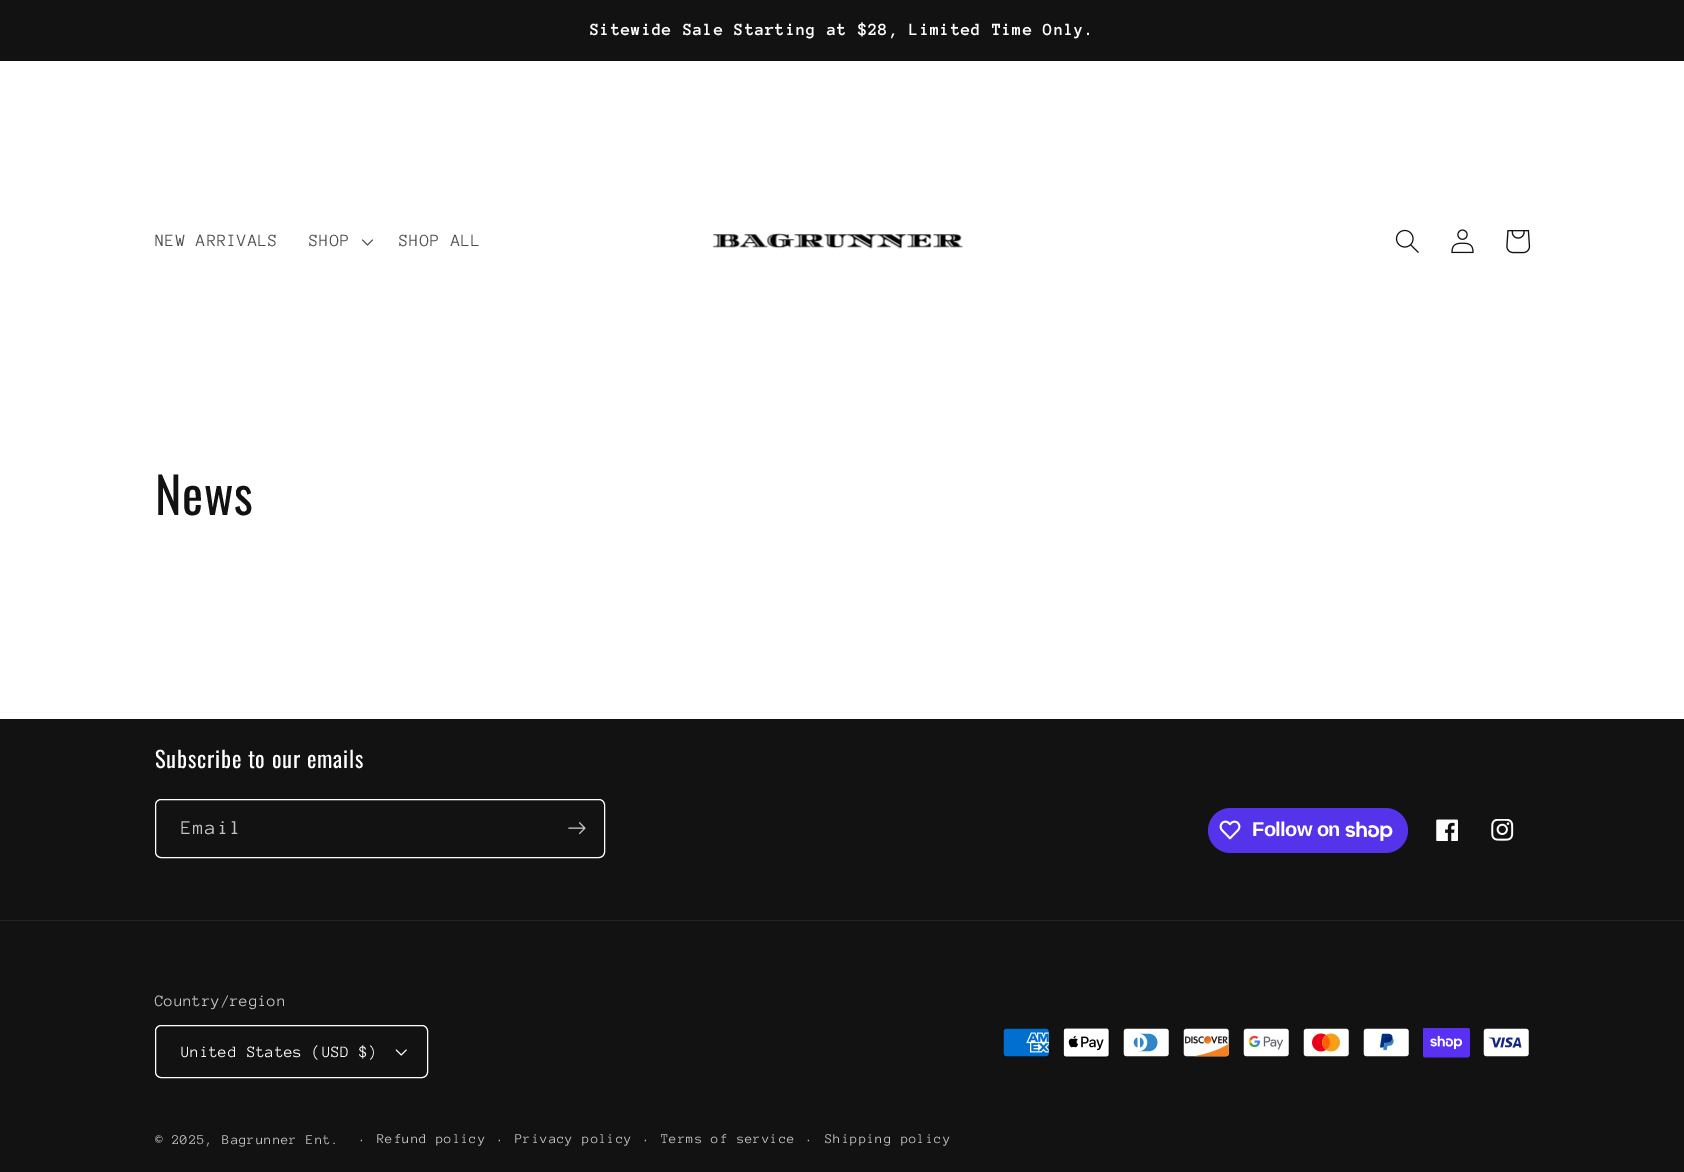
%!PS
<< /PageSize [1684 1172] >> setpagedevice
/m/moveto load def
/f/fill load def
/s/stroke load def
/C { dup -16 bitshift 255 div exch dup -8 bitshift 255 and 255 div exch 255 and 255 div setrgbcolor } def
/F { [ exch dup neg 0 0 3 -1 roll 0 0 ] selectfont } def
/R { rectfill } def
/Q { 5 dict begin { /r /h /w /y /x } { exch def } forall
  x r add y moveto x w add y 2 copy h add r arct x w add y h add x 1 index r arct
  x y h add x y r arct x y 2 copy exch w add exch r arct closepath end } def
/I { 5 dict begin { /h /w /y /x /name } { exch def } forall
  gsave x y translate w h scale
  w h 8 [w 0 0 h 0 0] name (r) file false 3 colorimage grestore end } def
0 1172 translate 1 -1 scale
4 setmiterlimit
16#FFFFFF C
0 0 1684 1172 R
16#121212 C
0 0 1684 61 R
/AnonymousPro-Bold 17.5 F
16#FFFFFF C
590 35 m .75 0 (Sitewide Sale Starting at $28, Limited Time Only.) ashow
/AnonymousPro-Regular 17.5 F
16#4D4D4D C
155 246 m .75 0 (NEW ARRIVALS) ashow
309 246 m .75 0 (SHOP) ashow
(1.rgb) 362 239 11 7 I
399 246 m .75 0 (SHOP ALL) ashow
(2.rgb) 712 233 251 16 I
(3.rgb) 1395 229 24 24 I
(4.rgb) 1451 229 23 25 I
(5.rgb) 1506 230 25 24 I
/Oswald-Regular 50 F
16#121212 C
155 515 m .75 0 (News) ashow
0 719 1684 453 R
/Oswald-Regular 22.5 F
16#FFFFFF C
155 768 m .75 0 (Subscribe to our emails) ashow
155.5 799.5 449 58 5.5 Q s
/AnonymousPro-Regular 20 F
16#C4C4C4 C
181 834 m 1.25 0 (Email) ashow
(6.rgb) 568 822 18 13 I
16#5433EB C
1208 808 200 45 22.5 Q f
(7.rgb) 1219 820 22 20 I
/LiberationSans-Bold 20 F
16#FFFFFF C
1252 836 m -.6 0 (Follow on) ashow
(8.rgb) 1345 821 48 20 I
(9.rgb) 1436 819 22 22 I
(10.rgb) 1491 819 23 22 I
16#252525 C
0 920 1684 1 R
/AnonymousPro-Regular 16.25 F
16#C4C4C4 C
155 1006 m .5 0 (Country/region) ashow
(11.rgb) 395 1049 12 7 I
16#FFFFFF C
155.5 1025.5 272 52 5.5 Q s
181 1057 m .5 0 (United States \(USD $\)) ashow
(12.rgb) 1003 1028 46 29 I
(13.rgb) 1063 1028 47 30 I
(14.rgb) 1123 1028 46 29 I
(15.rgb) 1183 1028 46 29 I
(16.rgb) 1243 1028 46 29 I
(17.rgb) 1303 1028 46 29 I
(18.rgb) 1363 1028 46 29 I
(19.rgb) 1423 1028 47 30 I
(20.rgb) 1483 1028 46 29 I
/AnonymousPro-Regular 13.75 F
16#C4C4C4 C
155 1144 m .9 0 (© 2025, Bagrunner Ent.) ashow
/AnonymousPro-Regular 15 F
358 1144 m .9 0 (·) ashow
/AnonymousPro-Regular 13.75 F
377 1143 m .9 0 (Refund policy) ashow
/AnonymousPro-Regular 15 F
496 1144 m .9 0 (·) ashow
/AnonymousPro-Regular 13.75 F
515 1143 m .9 0 (Privacy policy) ashow
/AnonymousPro-Regular 15 F
642 1144 m .9 0 (·) ashow
/AnonymousPro-Regular 13.75 F
661 1143 m .9 0 (Terms of service) ashow
/AnonymousPro-Regular 15 F
805 1144 m .9 0 (·) ashow
/AnonymousPro-Regular 13.75 F
825 1143 m .9 0 (Shipping policy) ashow
showpage
